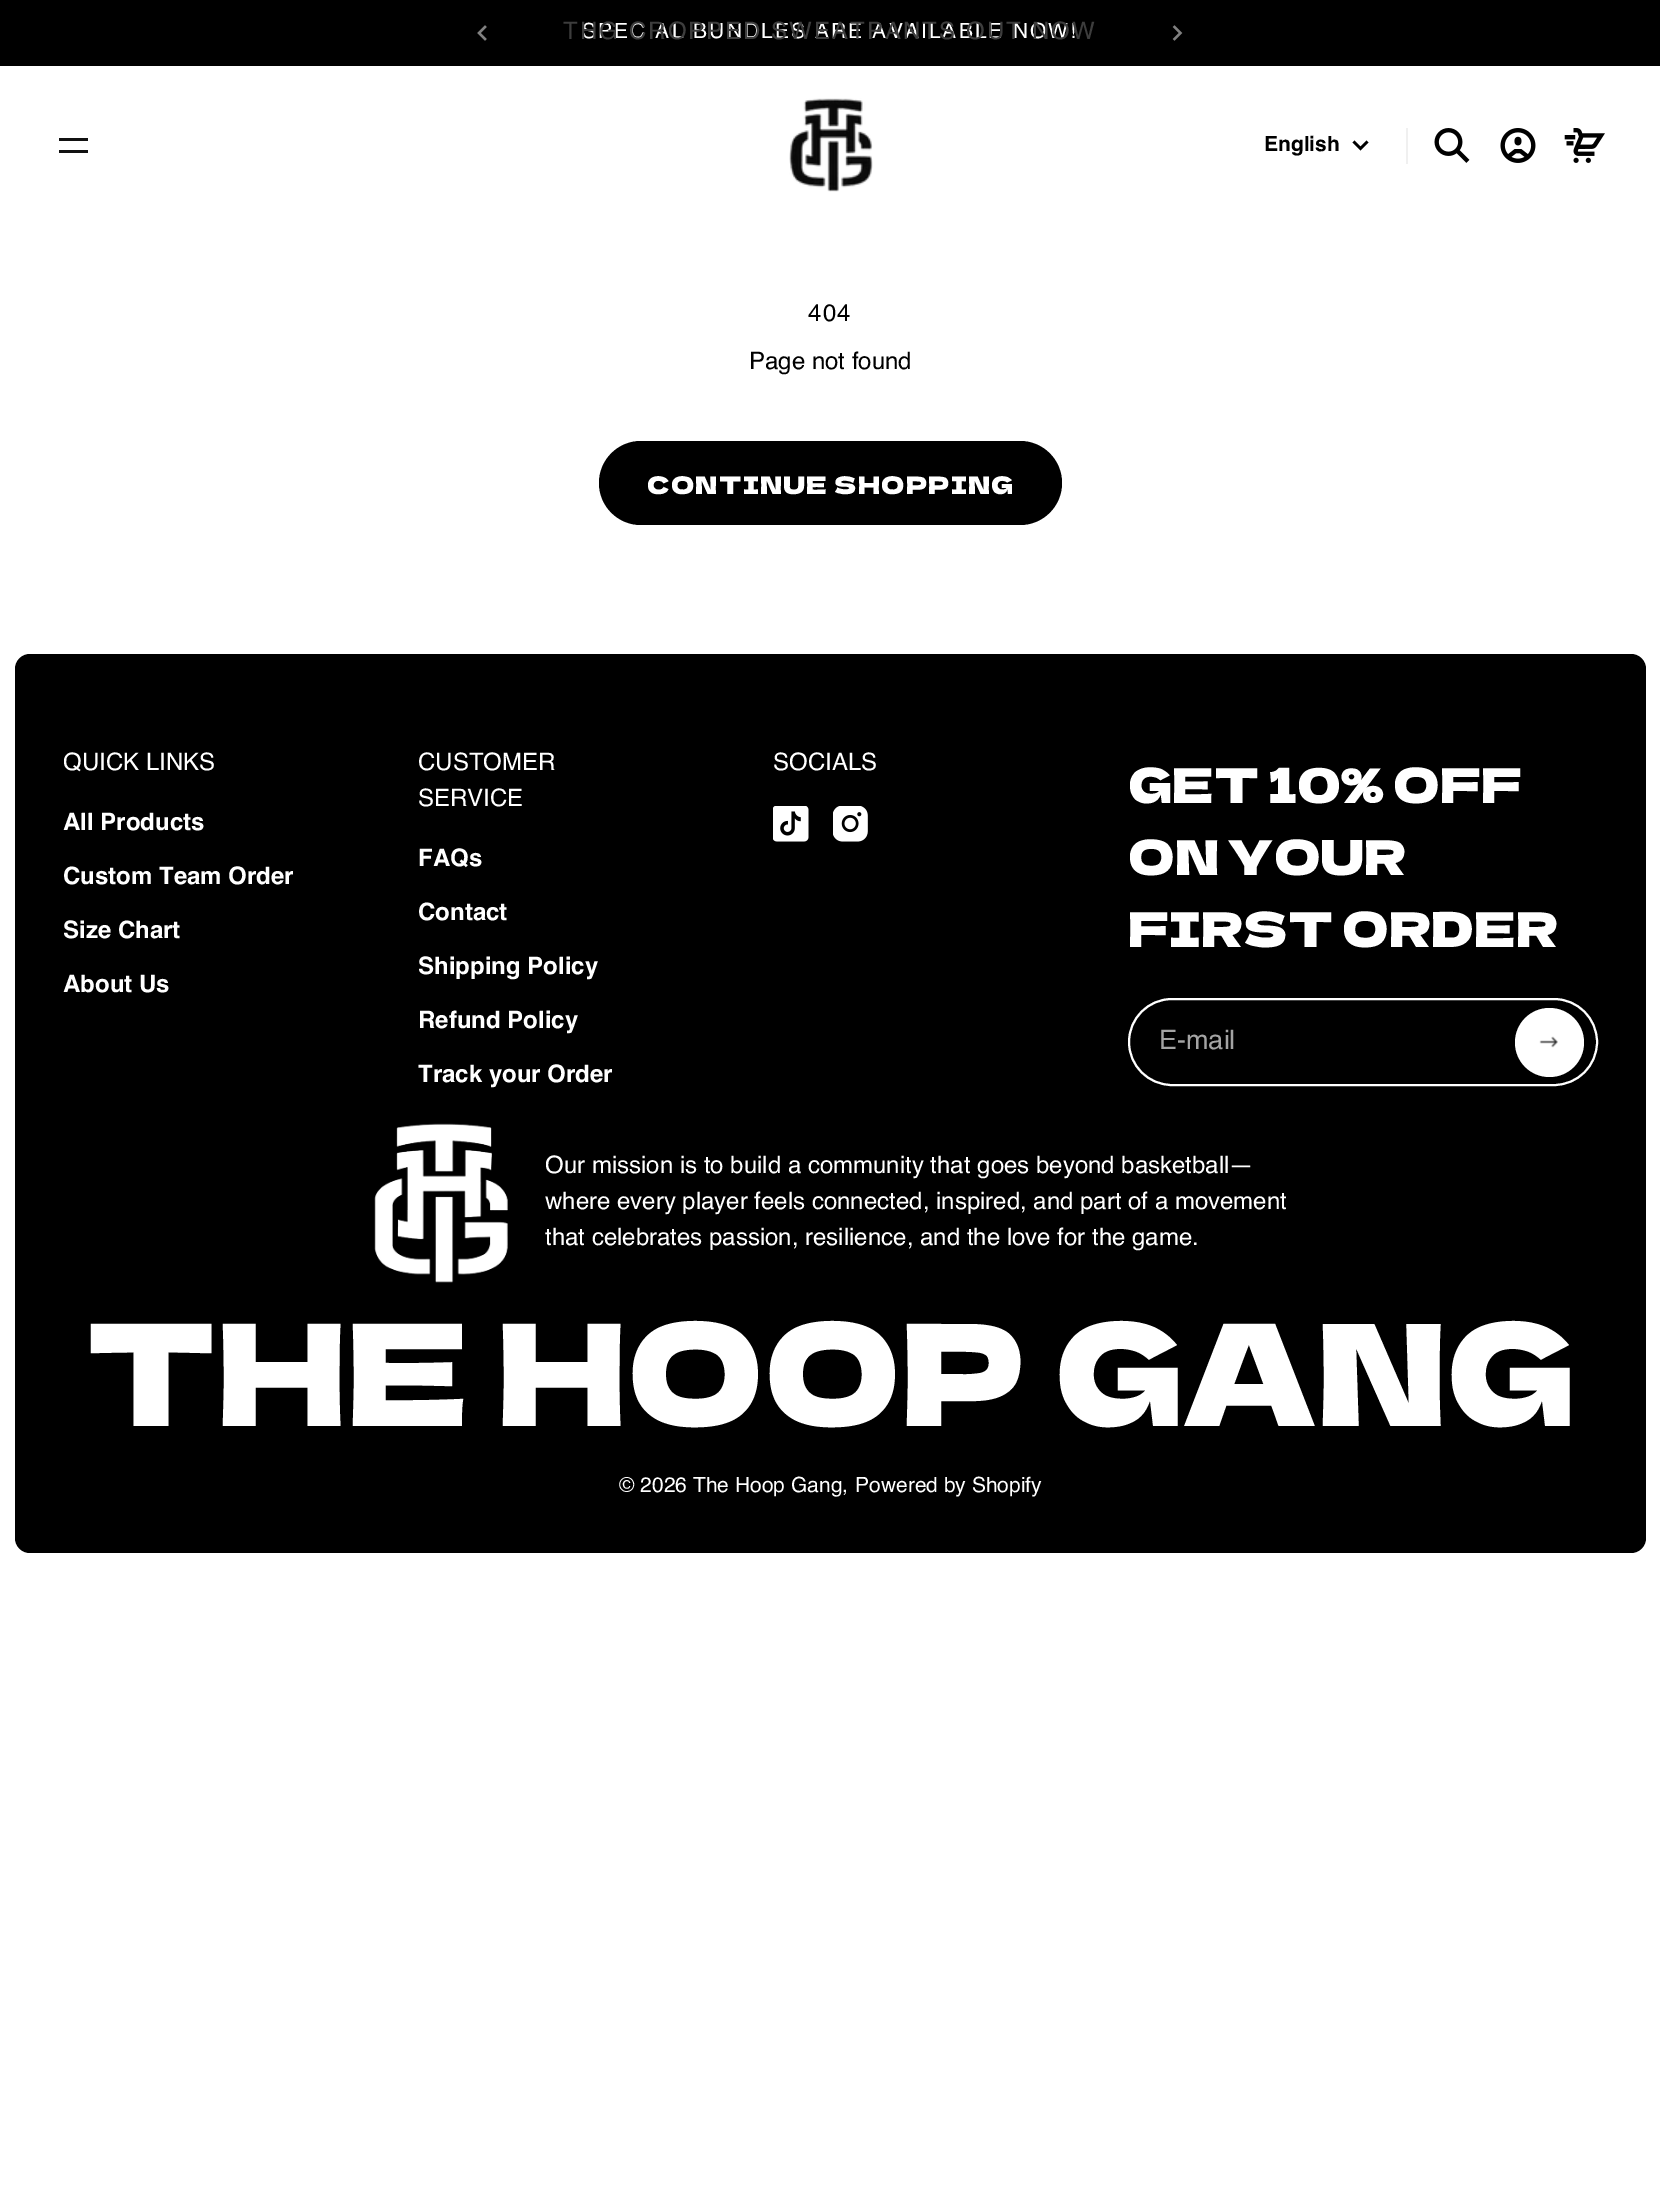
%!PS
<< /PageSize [1660 2197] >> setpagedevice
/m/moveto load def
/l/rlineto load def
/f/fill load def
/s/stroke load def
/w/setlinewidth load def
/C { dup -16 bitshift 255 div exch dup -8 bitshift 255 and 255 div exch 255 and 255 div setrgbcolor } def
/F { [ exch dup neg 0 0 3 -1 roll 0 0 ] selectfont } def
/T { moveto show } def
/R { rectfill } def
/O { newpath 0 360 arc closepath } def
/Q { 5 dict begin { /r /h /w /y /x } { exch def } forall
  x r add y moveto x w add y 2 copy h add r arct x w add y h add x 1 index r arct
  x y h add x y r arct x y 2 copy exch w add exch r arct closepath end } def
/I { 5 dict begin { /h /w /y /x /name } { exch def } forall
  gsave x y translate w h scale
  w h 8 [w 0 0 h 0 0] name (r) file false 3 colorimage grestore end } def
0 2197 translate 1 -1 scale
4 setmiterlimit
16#FFFFFF C
0 0 1660 2197 R
16#000000 C
0 0 1660 66 R
/Helvetica-Regular 21 F
16#FFFFFF C
582 38 m 2.1 0 (SPECIAL BUNDLES ARE AVAILABLE NOW!) ashow
/Helvetica-Regular 24 F
16#3D3D3D C
563 39 m 2.1 0 (THG CROPPED SWEATPANTS OUT NOW) ashow
16#808080 C
2.2 w
2 setlinecap
485 39 m -6 -6 l 6 -6 l s
1174.5 39 m 6 -6 l -6 -6 l s
16#111111 C
59 150 29 3 R
59 138 29 3 R
(1.rgb) 789 98 84 94 I
/Helvetica-Bold 21 F
16#000000 C
(English) 1264 151 T
2.8 w
1354.5 142.5 m 6 6 l 6 -6 l s
16#F0F0F0 C
1406 128 2 36 R
(2.rgb) 1434 128 36 35 I
(3.rgb) 1500 128 36 35 I
(4.rgb) 1564 128 41 35 I
/Helvetica-Regular 24 F
16#000000 C
808 321 m 1.25 0 (404) ashow
(Page not found) 749 369 T
599 441 463 84 42 Q f
/DelaGothicOne-Regular 24 F
16#FFFFFF C
647 494 m 1.25 0 (CONTINUE SHOPPING) ashow
16#000000 C
15 654 1631 899 15 Q f
/Helvetica-Regular 24 F
16#FFFFFF C
(QUICK LINKS) 63 770 T
/Helvetica-Bold 24 F
(All Products) 63 830 T
(Custom Team Order) 63 884 T
(Size Chart) 63 938 T
(About Us) 63 992 T
/Helvetica-Regular 24 F
(CUSTOMER) 418 770 T
(SERVICE) 418 806 T
/Helvetica-Bold 24 F
(FAQs) 418 866 T
(Contact) 418 920 T
(Shipping Policy) 418 974 T
(Refund Policy) 418 1028 T
(Track your Order) 418 1082 T
/Helvetica-Regular 24 F
(SOCIALS) 773 770 T
(5.rgb) 773 806 36 36 I
(6.rgb) 833 806 35 36 I
/DelaGothicOne-Regular 48 F
(GET 10% OFF) 1128 803 T
(ON YOUR) 1128 875 T
(FIRST ORDER) 1128 947 T
2 w
0 setlinecap
1129 999 468 86 43 Q s
/Helvetica-Regular 27 F
16#A3A3A3 C
(E-mail) 1159 1049 T
16#FFFFFF C
1549.5 1042.5 34.5 O f
(7.rgb) 1539 1036 19 12 I
(8.rgb) 374 1123 134 160 I
/Helvetica-Regular 24 F
(Our mission is to build a community that goes beyond basketball—) 545 1173 T
(where every player feels connected, inspired, and part of a movement) 545 1209 T
(that celebrates passion, resilience, and the love for the game.) 545 1245 T
/DelaGothicOne-Regular 141 F
(THE HOOP GANG) 85 1426 T
/Helvetica-Regular 21 F
(© 2026 The Hoop Gang,) 619 1492 T
(Powered by Shopify) 855 1492 T
showpage
